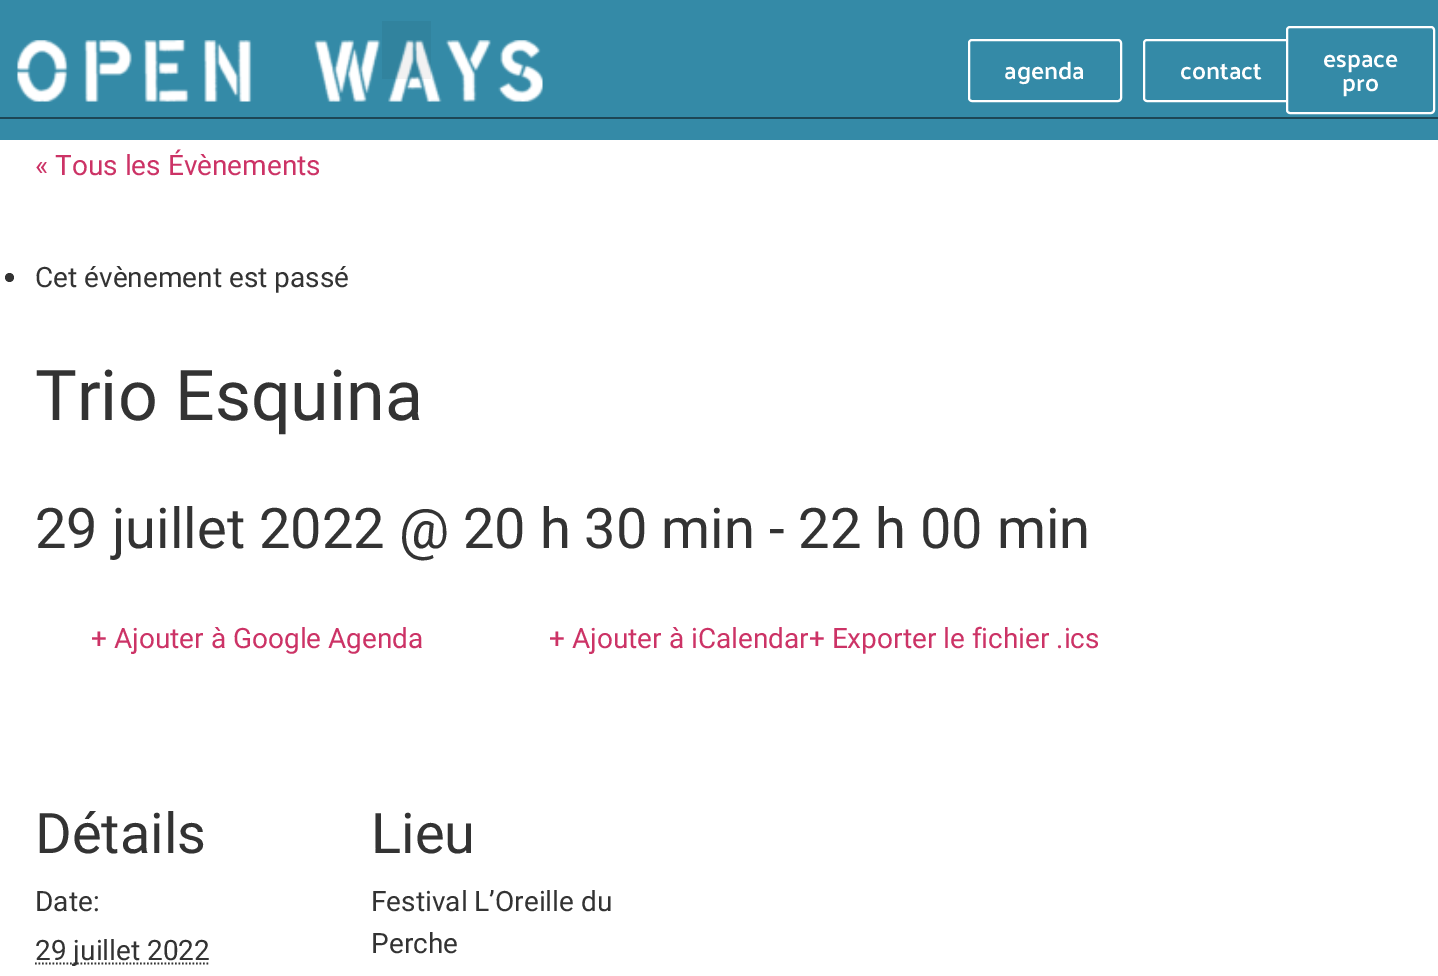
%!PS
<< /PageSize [1438 976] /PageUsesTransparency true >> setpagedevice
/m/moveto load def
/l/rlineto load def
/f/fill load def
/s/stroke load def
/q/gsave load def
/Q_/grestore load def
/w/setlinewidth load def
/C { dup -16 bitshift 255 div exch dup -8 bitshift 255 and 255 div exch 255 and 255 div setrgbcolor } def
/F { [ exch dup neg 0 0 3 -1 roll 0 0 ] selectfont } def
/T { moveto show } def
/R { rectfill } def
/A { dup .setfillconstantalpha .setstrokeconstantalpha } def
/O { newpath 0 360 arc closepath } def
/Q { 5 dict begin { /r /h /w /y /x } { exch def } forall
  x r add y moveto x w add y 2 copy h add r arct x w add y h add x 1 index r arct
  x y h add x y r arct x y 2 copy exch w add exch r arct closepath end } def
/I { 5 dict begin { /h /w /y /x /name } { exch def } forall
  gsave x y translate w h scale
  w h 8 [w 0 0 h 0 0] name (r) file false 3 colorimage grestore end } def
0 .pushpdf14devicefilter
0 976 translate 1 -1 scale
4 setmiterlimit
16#FFFFFF C
0 0 1438 976 R
16#348AA7 C
0 0 1438 140 R
16#1D4655 C
0 117 1438 2 R
(1.rgb) 17 40 526 62 I
0.05 A
16#000000 C
382 21 49 58 R
1 A
16#FFFFFF C
2 w
969 40 152 61 3 Q s
/Palanquin-SemiBold 24.5 F
(agenda) 1004 79 T
1144 40 154 61 3 Q s
(contact) 1180 79 T
16#348AA7 C
1287 27 147 86 3 Q q f Q_
16#FFFFFF C
s
(espace) 1323 67 T
(pro) 1342 91 T
/Roboto-Regular 28 F
16#CC3366 C
(« Tous les Évènements) 35 175 T
16#333333 C
9.5 277.5 4.5 O f
(Cet évènement est passé) 35 287 T
/Roboto-Regular 70 F
(Trio Esquina) 35 420 T
/Roboto-Regular 56 F
(29 juillet 2022 @ 20 h 30 min - 22 h 00 min) 35 548 T
/Roboto-Regular 28 F
16#CC3366 C
(+ Ajouter à Google Agenda) 91 648 T
(+ Ajouter à iCalendar+ Exporter le fichier .ics) 549 648 T
/Roboto-Regular 56 F
16#333333 C
(Détails) 35 853 T
/Roboto-Regular 28 F
(Date:) 35 911 T
1.8 w
[1.75 1.75] 0 setdash
35 963.5 m 175 0 l s
(29 juillet 2022) 35 960 T
/Roboto-Regular 56 F
(Lieu) 371 853 T
/Roboto-Regular 28 F
(Festival L’Oreille du) 371 911 T
(Perche) 371 953 T
.poppdf14devicefilter showpage
